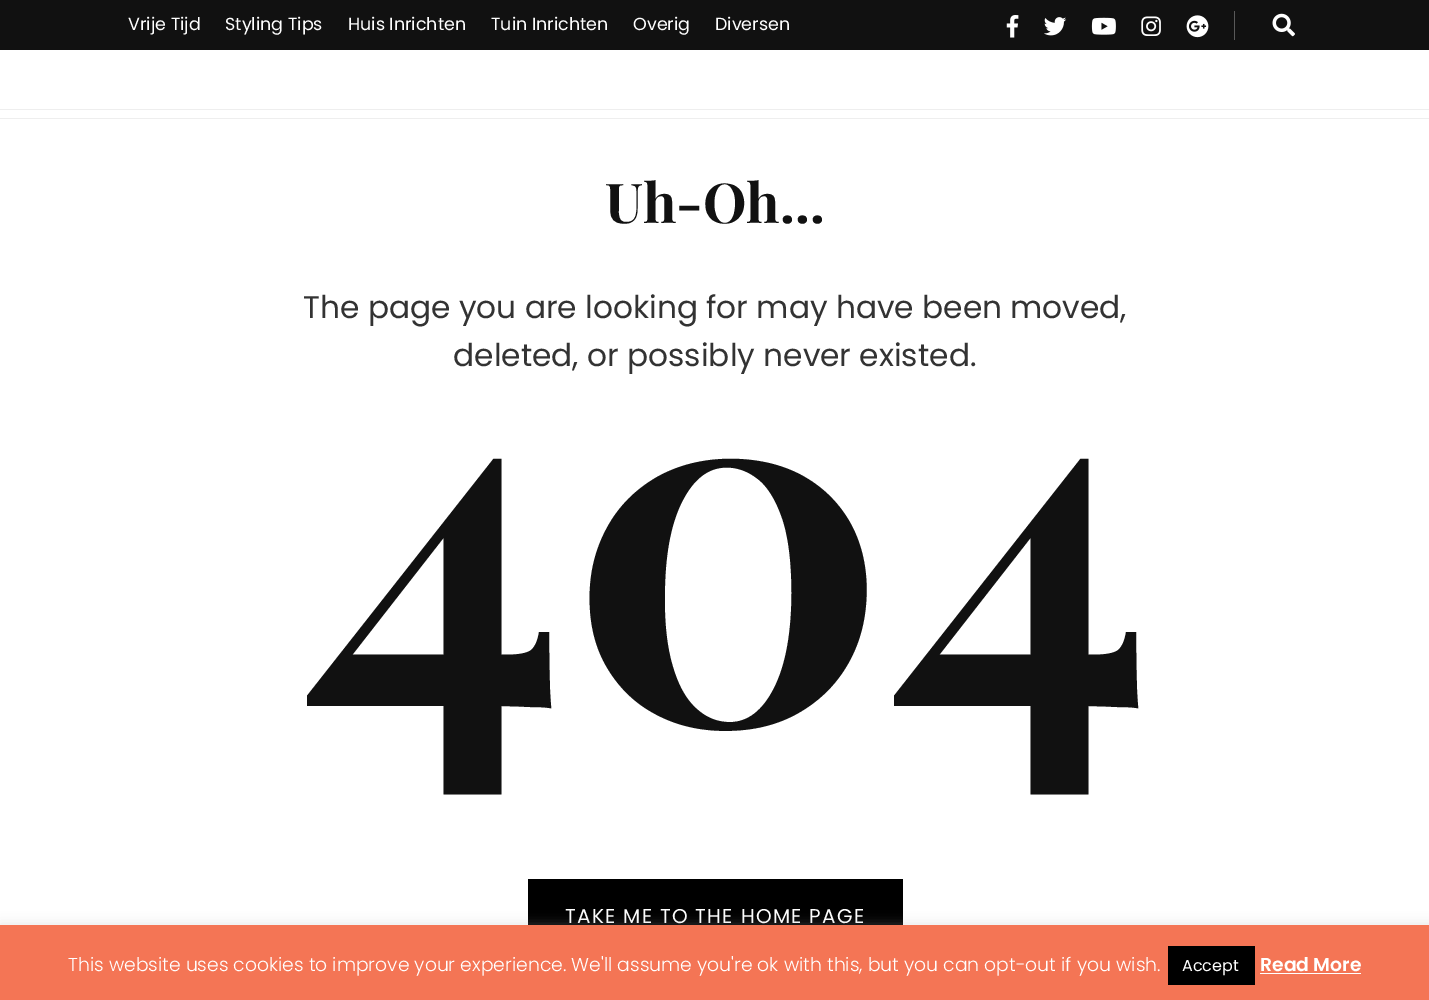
%!PS
<< /PageSize [1429 1000] /PageUsesTransparency true >> setpagedevice
/m/moveto load def
/C { dup -16 bitshift 255 div exch dup -8 bitshift 255 and 255 div exch 255 and 255 div setrgbcolor } def
/F { [ exch dup neg 0 0 3 -1 roll 0 0 ] selectfont } def
/T { moveto show } def
/R { rectfill } def
/A { dup .setfillconstantalpha .setstrokeconstantalpha } def
/Q { 5 dict begin { /r /h /w /y /x } { exch def } forall
  x r add y moveto x w add y 2 copy h add r arct x w add y h add x 1 index r arct
  x y h add x y r arct x y 2 copy exch w add exch r arct closepath end } def
/S { 12 dict begin { /a /b /q /h /w /y /x } { exch def } forall gsave /was 0 def
  9 -2 -9 { dup b mul 4 div /e exch def 1 sub .425 mul 2.718 exch exp 1 add a .99 .min exch div /now exch def
    1 1 now sub 1 was sub div sub A /was now def
    w h .min e 2 mul add 0 gt { x e sub y e sub w e 2 mul add h e 2 mul add
      q e add b .6 mul add w h .min 2 div e add .min 0 .max Q fill } if } for grestore end } def
/I { 5 dict begin { /h /w /y /x /name } { exch def } forall
  gsave x y translate w h scale
  w h 8 [w 0 0 h 0 0] name (r) file false 3 colorimage grestore end } def
0 .pushpdf14devicefilter
0 1000 translate 1 -1 scale
4 setmiterlimit
16#FFFFFF C
0 0 1429 1000 R
16#111111 C
0 0 1429 50 R
/Poppins-Regular 17.5 F
16#FFFFFF C
(Vrije Tijd) 128 30 T
(Styling Tips) 225 30 T
(Huis Inrichten) 348 30 T
(Tuin Inrichten) 491 30 T
(Overig) 633 30 T
(Diversen) 715 30 T
(1.rgb) 1006 15 13 23 I
(2.rgb) 1044 17 23 19 I
(3.rgb) 1091 17 25 18 I
(4.rgb) 1141 16 20 20 I
(5.rgb) 1186 15 23 23 I
16#595959 C
1234 11 1 29 R
(6.rgb) 1272 13 23 24 I
16#EEEEEE C
0 109 1429 1 R
0 118 1429 1 R
/PlayfairDisplay-Bold 55 F
16#111111 C
(Uh-Oh...) 605 223 T
/Poppins-Regular 31.25 F
16#333333 C
(The page you are looking for may have been moved,) 303 318 T
(deleted, or possibly never existed.) 453 366 T
/PlayfairDisplay-Bold 500 F
16#111111 C
(404) 303 724 T
16#000000 C
528 879 375 46 R
/Poppins-Regular 20 F
16#FFFFFF C
565 923 m 1.25 0 (TAKE ME TO THE HOME PAGE) ashow
16#ACABAB C
0 924 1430 75 0 6 .3 S
16#F47555 C
0 925 1429 75 R
/Poppins-Light 18.75 F
16#FFFFFF C
(This website uses cookies to improve your experience. We'll assume you're ok with this, but you can opt-out if you wish.) 68 971 T
16#000000 C
1168 946 87 39 R
/Poppins-Regular 16 F
16#FFFFFF C
(Accept) 1182 971 T
/Poppins-SemiBold 18.75 F
(Read More) 1260 971 T
1260 973 101 1 R
.poppdf14devicefilter showpage
